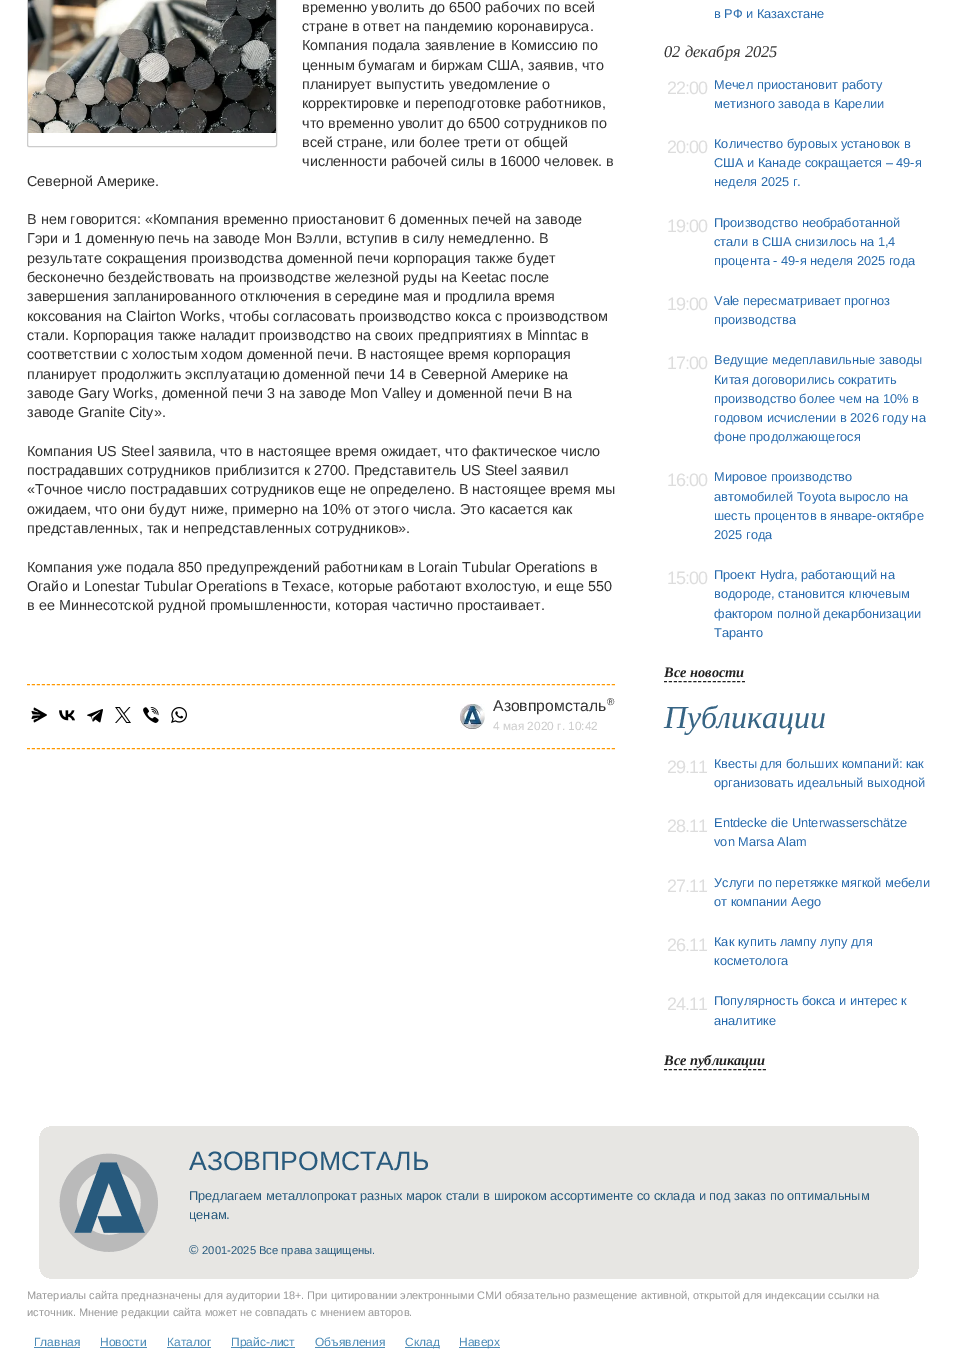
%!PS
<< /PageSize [971 1360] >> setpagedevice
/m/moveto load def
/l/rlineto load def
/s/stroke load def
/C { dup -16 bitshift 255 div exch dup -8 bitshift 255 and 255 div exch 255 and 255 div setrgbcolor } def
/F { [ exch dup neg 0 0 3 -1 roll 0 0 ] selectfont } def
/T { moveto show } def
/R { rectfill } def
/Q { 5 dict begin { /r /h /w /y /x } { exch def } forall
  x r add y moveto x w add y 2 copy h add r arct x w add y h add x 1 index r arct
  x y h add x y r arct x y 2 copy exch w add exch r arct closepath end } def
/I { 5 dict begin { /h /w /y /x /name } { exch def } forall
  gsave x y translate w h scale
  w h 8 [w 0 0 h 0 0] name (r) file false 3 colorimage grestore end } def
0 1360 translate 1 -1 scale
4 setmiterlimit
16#FFFFFF C
0 0 971 1360 R
16#CCCCCC C
27.5 -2.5 249 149 1.5 Q s
(1.rgb) 28 0 248 133 I
/LiberationSans-Regular 14.4 F
16#343434 C
(временно уволить до 6500 рабочих по всей) 302 12 T
(стране в ответ на пандемию коронавируса.) 302 31 T
(Компания подала заявление в Комиссию по) 302 50 T
(ценным бумагам и биржам США, заявив, что) 302 70 T
(планирует выпустить уведомление о) 302 89 T
(корректировке и переподготовке работников,) 302 108 T
(что временно уволит до 6500 сотрудников по) 302 128 T
(всей стране, или более трети от общей) 302 147 T
(численности рабочей силы в 16000 человек. в) 302 166 T
(Северной Америке.) 27 186 T
(В нем говорится: «Компания временно приостановит 6 доменных печей на заводе) 27 224 T
(Гэри и 1 доменную печь на заводе Мон Вэлли, вступив в силу немедленно. В) 27 243 T
(результате сокращения производства доменной печи корпорация также будет) 27 263 T
(бесконечно бездействовать на производстве железной руды на Keetac после) 27 282 T
(завершения запланированного отключения в середине мая и продлила время) 27 301 T
(коксования на Clairton Works, чтобы согласовать производство кокса с производством) 27 321 T
(стали. Корпорация также наладит производство на своих предприятиях в Minntac в) 27 340 T
(соответствии с холостым ходом доменной печи. В настоящее время корпорация) 27 359 T
(планирует продолжить эксплуатацию доменной печи 14 в Северной Америке на) 27 379 T
(заводе Gary Works, доменной печи 3 на заводе Mon Valley и доменной печи B на) 27 398 T
(заводе Granite City».) 27 417 T
(Компания US Steel заявила, что в настоящее время ожидает, что фактическое число) 27 456 T
(пострадавших сотрудников приблизится к 2700. Представитель US Steel заявил) 27 475 T
(«Точное число пострадавших сотрудников еще не определено. В настоящее время мы) 27 494 T
(ожидаем, что они будут ниже, примерно на 10% от этого числа. Это касается как) 27 514 T
(представленных, так и непредставленных сотрудников».) 27 533 T
(Компания уже подала 850 предупреждений работникам в Lorain Tubular Operations в) 27 572 T
(Огайо и Lonestar Tubular Operations в Техасе, которые работают вхолостую, и еще 550) 27 591 T
(в ее Миннесотской рудной промышленности, которая частично простаивает.) 27 610 T
16#FF9900 C
[3 2] 0 setdash
27 684.5 m 588 0 l s
27 748.5 m 588 0 l s
(2.rgb) 31 707 16 16 I
(3.rgb) 59 710 16 11 I
(4.rgb) 87 709 16 14 I
(5.rgb) 115 707 16 16 I
(6.rgb) 143 707 16 16 I
(7.rgb) 171 707 16 16 I
(8.rgb) 460 704 25 25 I
/LiberationSans-Regular 15.75 F
16#343434 C
(Азовпромсталь) 493 711 T
/LiberationSans-Regular 10 F
(®) 607 705 T
/LiberationSans-Regular 11.9 F
16#CCCCCC C
(4 мая 2020 г. 10:42) 493 730 T
/LiberationSans-Regular 12.8 F
16#286BAD C
(в РФ и Казахстане) 714 18 T
/LiberationSerif-Italic 16.5 F
16#343434 C
(02 декабря 2025) 664 57 T
/LiberationSans-Regular 18 F
16#DDDDDD C
667 94 m -1 0 (22:00) ashow
/LiberationSans-Regular 12.8 F
16#286BAD C
(Мечел приостановит работу) 714 89 T
(метизного завода в Карелии) 714 108 T
/LiberationSans-Regular 18 F
16#DDDDDD C
667 153 m -1 0 (20:00) ashow
/LiberationSans-Regular 12.8 F
16#286BAD C
(Количество буровых установок в) 714 148 T
(США и Канаде сокращается – 49-я) 714 167 T
(неделя 2025 г.) 714 186 T
/LiberationSans-Regular 18 F
16#DDDDDD C
667 232 m -1 0 (19:00) ashow
/LiberationSans-Regular 12.8 F
16#286BAD C
(Производство необработанной) 714 227 T
(стали в США снизилось на 1,4) 714 246 T
(процента - 49-я неделя 2025 года) 714 265 T
/LiberationSans-Regular 18 F
16#DDDDDD C
667 310 m -1 0 (19:00) ashow
/LiberationSans-Regular 12.8 F
16#286BAD C
(Vale пересматривает прогноз) 714 305 T
(производства) 714 324 T
/LiberationSans-Regular 18 F
16#DDDDDD C
667 369 m -1 0 (17:00) ashow
/LiberationSans-Regular 12.8 F
16#286BAD C
(Ведущие медеплавильные заводы) 714 364 T
(Китая договорились сократить) 714 384 T
(производство более чем на 10% в) 714 403 T
(годовом исчислении в 2026 году на) 714 422 T
(фоне продолжающегося) 714 441 T
/LiberationSans-Regular 18 F
16#DDDDDD C
667 486 m -1 0 (16:00) ashow
/LiberationSans-Regular 12.8 F
16#286BAD C
(Мировое производство) 714 481 T
(автомобилей Toyota выросло на) 714 501 T
(шесть процентов в январе-октябре) 714 520 T
(2025 года) 714 539 T
/LiberationSans-Regular 18 F
16#DDDDDD C
667 584 m -1 0 (15:00) ashow
/LiberationSans-Regular 12.8 F
16#286BAD C
(Проект Hydra, работающий на) 714 579 T
(водороде, становится ключевым) 714 598 T
(фактором полной декарбонизации) 714 618 T
(Таранто) 714 637 T
16#222222 C
[3 1.88] 0 setdash
664 681.5 m 81 0 l s
/LiberationSerif-BoldItalic 14.4 F
(Все новости) 664 677 T
/LiberationSerif-Italic 32 F
16#366484 C
(Публикации) 664 728 T
/LiberationSans-Regular 18 F
16#DDDDDD C
667 773 m -1 0 (29.11) ashow
/LiberationSans-Regular 12.8 F
16#286BAD C
(Квесты для больших компаний: как) 714 768 T
(организовать идеальный выходной) 714 787 T
/LiberationSans-Regular 18 F
16#DDDDDD C
667 832 m -1 0 (28.11) ashow
/LiberationSans-Regular 12.8 F
16#286BAD C
(Entdecke die Unterwasserschätze) 714 827 T
(von Marsa Alam) 714 846 T
/LiberationSans-Regular 18 F
16#DDDDDD C
667 892 m -1 0 (27.11) ashow
/LiberationSans-Regular 12.8 F
16#286BAD C
(Услуги по перетяжке мягкой мебели) 714 887 T
(от компании Aego) 714 906 T
/LiberationSans-Regular 18 F
16#DDDDDD C
667 951 m -1 0 (26.11) ashow
/LiberationSans-Regular 12.8 F
16#286BAD C
(Как купить лампу лупу для) 714 946 T
(косметолога) 714 965 T
/LiberationSans-Regular 18 F
16#DDDDDD C
667 1010 m -1 0 (24.11) ashow
/LiberationSans-Regular 12.8 F
16#286BAD C
(Популярность бокса и интерес к) 714 1005 T
(аналитике) 714 1025 T
16#222222 C
[3 1.95] 0 setdash
664 1069.5 m 102 0 l s
/LiberationSerif-BoldItalic 14.4 F
(Все публикации) 664 1065 T
16#E7E6E3 C
49 1126 860 1 R
46 1127 866 1 R
44 1128 870 1 R
43 1129 872 1 R
42 1130 874 1 R
41 1131 876 2 R
40 1133 878 3 R
39 1136 880 133 R
(9.rgb) 59 1153 99 99 I
/LiberationSans-Regular 26.6 F
16#285A7D C
(АЗОВПРОМСТАЛЬ) 189 1170 T
/LiberationSans-Regular 12.8 F
(Предлагаем металлопрокат разных марок стали в широком ассортименте со склада и под заказ по оптимальным) 189 1200 T
(ценам.) 189 1219 T
(©) 189 1254 T
/LiberationSans-Regular 11.25 F
(2001-2025 Все права защищены.) 202 1254 T
16#E7E6E3 C
40 1269 878 3 R
41 1272 876 2 R
42 1274 874 1 R
43 1275 872 1 R
44 1276 870 1 R
46 1277 866 1 R
49 1278 860 1 R
/LiberationSans-Regular 11 F
16#999999 C
(Материалы сайта предназначены для аудитории 18+. При цитировании электронными СМИ обязательно размещение активной, открытой для индексации ссылки на) 27 1299 T
(источник. Мнение редакции сайта может не совпадать с мнением авторов.) 27 1316 T
/LiberationSans-Regular 12 F
16#4D8CB7 C
(Главная) 34 1346 T
34 1347 46 1 R
(Новости) 100 1346 T
100 1347 47 1 R
(Каталог) 167 1346 T
167 1347 44 1 R
231 1347 64 1 R
(Прайс-лист) 231 1346 T
(Объявления) 315 1346 T
315 1347 70 1 R
405 1347 34 1 R
(Склад) 405 1346 T
459 1347 41 1 R
(Наверх) 459 1346 T
showpage
